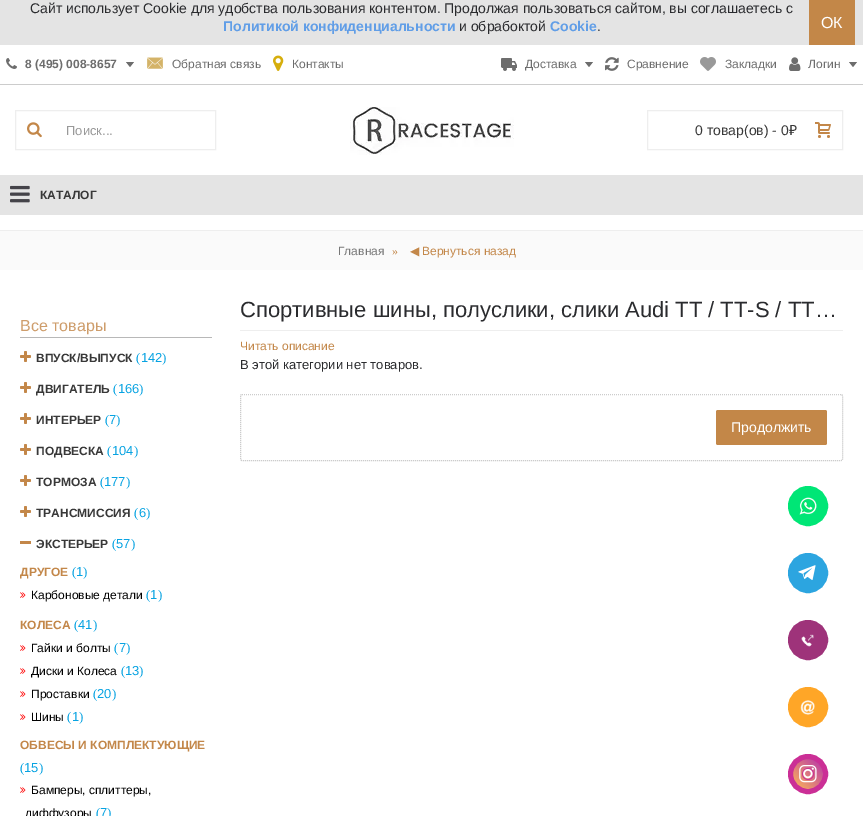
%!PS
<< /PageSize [863 816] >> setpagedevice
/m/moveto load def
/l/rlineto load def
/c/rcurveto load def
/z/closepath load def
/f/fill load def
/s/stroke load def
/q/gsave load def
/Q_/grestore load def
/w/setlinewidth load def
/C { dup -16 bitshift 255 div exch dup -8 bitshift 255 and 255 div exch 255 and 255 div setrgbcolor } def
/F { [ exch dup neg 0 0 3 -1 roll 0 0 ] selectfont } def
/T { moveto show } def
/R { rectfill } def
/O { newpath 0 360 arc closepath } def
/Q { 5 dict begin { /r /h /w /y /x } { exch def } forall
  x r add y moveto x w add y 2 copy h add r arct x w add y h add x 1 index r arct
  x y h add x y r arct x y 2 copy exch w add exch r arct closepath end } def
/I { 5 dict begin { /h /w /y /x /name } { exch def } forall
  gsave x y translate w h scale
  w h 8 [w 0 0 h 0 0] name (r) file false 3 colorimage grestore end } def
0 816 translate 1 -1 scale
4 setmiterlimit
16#FFFFFF C
0 0 863 816 R
16#E4E4E4 C
0 0 863 45 R
/LiberationSans-Regular 14 F
16#2A2B2E C
(Сайт использует Cookie для удобства пользования контентом. Продолжая пользоваться сайтом, вы соглашаетесь с) 30 13 T
/LiberationSans-Bold 14 F
16#619EE7 C
(Политикой конфиденциальности) 223 31 T
/LiberationSans-Regular 14 F
16#2A2B2E C
(и обрабоктой) 459 31 T
/LiberationSans-Bold 14 F
16#619EE7 C
(Cookie) 550 31 T
/LiberationSans-Regular 14 F
16#2A2B2E C
(.) 597 31 T
16#C38748 C
809 0 46 45 R
/LiberationSans-Regular 16 F
16#FFFFFF C
(ОК) 821 28 T
(1.rgb) 6 58 11 11 I
/LiberationSans-Bold 12 F
16#6D6D6D C
(8 \(495\) 008-8657) 25 68 T
134 62 m -8 0 l 4 5 l z f
(2.rgb) 147 57 16 12 I
/LiberationSans-Regular 12 F
(Обратная связь) 172 68 T
(3.rgb) 273 55 11 16 I
(Контакты) 292 68 T
(4.rgb) 501 58 16 13 I
(Доставка) 525 68 T
593 62 m -8 0 l 4 5 l z f
(5.rgb) 605 57 14 14 I
(Сравнение) 627 68 T
(6.rgb) 700 57 16 14 I
(Закладки) 725 68 T
(7.rgb) 789 57 12 14 I
(Логин) 808 68 T
857 62 m -8 0 l 4 5 l z f
16#EEEEEE C
15.5 110.5 200 39 rectstroke
(8.rgb) 27 122 15 16 I
/LiberationSans-Regular 13 F
16#999999 C
(Поиск...) 66 135 T
(9.rgb) 350 107 164 48 I
16#EEEEEE C
647.5 110.5 195 39 rectstroke
/LiberationSans-Regular 14 F
16#383838 C
(0 товар\(ов\) - 0) 695 135 T
/NotoSans-Regular 14 F
(₽) 789 135 T
(10.rgb) 815 122 16 16 I
16#E4E4E4 C
0 175 863 40 R
(11.rgb) 10 185 20 18 I
/LiberationSans-Bold 12 F
16#383838 C
(КАТАЛОГ) 40 199 T
16#CCCCCC C
0 84 863 1 R
16#FAFAFA C
0 231 863 39 R
16#EEEEEE C
0 230 863 1 R
/LiberationSans-Regular 12 F
16#777777 C
(Главная) 338 255 T
/LiberationSerif-Regular 12 F
16#C38749 C
(») 392 255 T
/DejaVuSans-Regular 12 F
(◀) 410 255 T
/LiberationSans-Regular 12 F
(Вернуться назад) 422 255 T
16#B8B8B8 C
20 337 192 1 R
/LiberationSans-Regular 16 F
16#CE9D6B C
(Все товары) 20 331 T
(12.rgb) 20 351 11 11 I
/LiberationSans-Bold 12 F
16#383838 C
(ВПУСК/ВЫПУСК) 36 362 T
/LiberationSerif-Regular 13 F
16#07A3E2 C
(\() 136 362 T
/LiberationSans-Regular 13 F
(142) 141 362 T
/LiberationSerif-Regular 13 F
(\)) 162 362 T
(12.rgb) 20 382 11 11 I
/LiberationSans-Bold 12 F
16#383838 C
(ДВИГАТЕЛЬ) 36 393 T
/LiberationSerif-Regular 13 F
16#07A3E2 C
(\() 113 393 T
/LiberationSans-Regular 13 F
(166) 118 393 T
/LiberationSerif-Regular 13 F
(\)) 139 393 T
(12.rgb) 20 413 11 11 I
/LiberationSans-Bold 12 F
16#383838 C
(ИНТЕРЬЕР) 36 424 T
/LiberationSerif-Regular 13 F
16#07A3E2 C
(\() 105 424 T
/LiberationSans-Regular 13 F
(7) 109 424 T
/LiberationSerif-Regular 13 F
(\)) 116 424 T
(12.rgb) 20 444 11 11 I
/LiberationSans-Bold 12 F
16#383838 C
(ПОДВЕСКА) 36 455 T
/LiberationSerif-Regular 13 F
16#07A3E2 C
(\() 107 455 T
/LiberationSans-Regular 13 F
(104) 112 455 T
/LiberationSerif-Regular 13 F
(\)) 134 455 T
(12.rgb) 20 475 11 11 I
/LiberationSans-Bold 12 F
16#383838 C
(ТОРМОЗА) 36 486 T
/LiberationSerif-Regular 13 F
16#07A3E2 C
(\() 100 486 T
/LiberationSans-Regular 13 F
(177) 104 486 T
/LiberationSerif-Regular 13 F
(\)) 126 486 T
(12.rgb) 20 506 11 11 I
/LiberationSans-Bold 12 F
16#383838 C
(ТРАНСМИССИЯ) 36 517 T
/LiberationSerif-Regular 13 F
16#07A3E2 C
(\() 134 517 T
/LiberationSans-Regular 13 F
(6) 139 517 T
/LiberationSerif-Regular 13 F
(\)) 146 517 T
16#C38749 C
20 541 11 3 R
/LiberationSans-Bold 12 F
16#383838 C
(ЭКСТЕРЬЕР) 36 548 T
/LiberationSerif-Regular 13 F
16#07A3E2 C
(\() 112 548 T
/LiberationSans-Regular 13 F
(57) 116 548 T
/LiberationSerif-Regular 13 F
(\)) 131 548 T
/LiberationSans-Bold 12 F
16#C38749 C
(ДРУГОЕ) 20 576 T
/LiberationSerif-Regular 13 F
16#07A3E2 C
(\() 72 576 T
/LiberationSans-Regular 13 F
(1) 76 576 T
/LiberationSerif-Regular 13 F
(\)) 83 576 T
(13.rgb) 20 592 6 6 I
/LiberationSans-Regular 12 F
16#000000 C
(Карбоновые детали) 31 599 T
/LiberationSerif-Regular 13 F
16#07A3E2 C
(\() 146 599 T
/LiberationSans-Regular 13 F
(1) 150 599 T
/LiberationSerif-Regular 13 F
(\)) 158 599 T
/LiberationSans-Bold 12 F
16#C38749 C
(КОЛЕСА) 20 629 T
/LiberationSerif-Regular 13 F
16#07A3E2 C
(\() 74 629 T
/LiberationSans-Regular 13 F
(41) 78 629 T
/LiberationSerif-Regular 13 F
(\)) 93 629 T
(13.rgb) 20 645 6 6 I
/LiberationSans-Regular 12 F
16#000000 C
(Гайки и болты) 31 652 T
/LiberationSerif-Regular 13 F
16#07A3E2 C
(\() 114 652 T
/LiberationSans-Regular 13 F
(7) 119 652 T
/LiberationSerif-Regular 13 F
(\)) 126 652 T
(13.rgb) 20 668 6 6 I
/LiberationSans-Regular 12 F
16#000000 C
(Диски и Колеса) 31 675 T
/LiberationSerif-Regular 13 F
16#07A3E2 C
(\() 121 675 T
/LiberationSans-Regular 13 F
(13) 125 675 T
/LiberationSerif-Regular 13 F
(\)) 139 675 T
(13.rgb) 20 691 6 6 I
/LiberationSans-Regular 12 F
16#000000 C
(Проставки) 31 698 T
/LiberationSerif-Regular 13 F
16#07A3E2 C
(\() 93 698 T
/LiberationSans-Regular 13 F
(20) 97 698 T
/LiberationSerif-Regular 13 F
(\)) 112 698 T
(13.rgb) 20 714 6 6 I
/LiberationSans-Regular 12 F
16#000000 C
(Шины) 31 721 T
/LiberationSerif-Regular 13 F
16#07A3E2 C
(\() 67 721 T
/LiberationSans-Regular 13 F
(1) 72 721 T
/LiberationSerif-Regular 13 F
(\)) 79 721 T
/LiberationSans-Bold 12 F
16#C38749 C
(ОБВЕСЫ И КОМПЛЕКТУЮЩИЕ) 20 749 T
/LiberationSerif-Regular 13 F
16#07A3E2 C
(\() 20 772 T
/LiberationSans-Regular 13 F
(15) 24 772 T
/LiberationSerif-Regular 13 F
(\)) 39 772 T
(13.rgb) 20 787 6 6 I
/LiberationSans-Regular 12 F
16#000000 C
(Бамперы, сплиттеры,) 31 794 T
(диффузоры) 25 817 T
/LiberationSerif-Regular 13 F
16#07A3E2 C
(\() 96 817 T
/LiberationSans-Regular 13 F
(7) 100 817 T
/LiberationSerif-Regular 13 F
(\)) 107 817 T
16#EEEEEE C
240 330 603 1 R
/LiberationSans-Regular 22 F
16#2A2B2E C
(Спортивные шины, полуслики, слики Audi TT / TT-S / TT…) 240 317 T
/LiberationSans-Regular 12 F
16#C38749 C
(Читать описание) 240 350 T
/LiberationSans-Regular 13 F
16#2A2B2E C
(В этой категории нет товаров.) 240 369 T
16#CCCCCC C
[1 1] 0 setdash
242 394.5 m 599 0 l 1 0 1.5 .5 1.5 1.5 c 0 63 l 0 1 -.5 1.5 -1.5 1.5 c -599 0 l -1 0 -1.5 -.5 -1.5 -1.5 c 0 -63 l 0 -1 .5 -1.5 1.5 -1.5 c z s
16#C38748 C
716 410 111 35 2 Q f
/LiberationSans-Regular 14 F
16#FFFFFF C
(Продолжить) 731 432 T
16#00E676 C
808 506 17.5 O q f Q_
5 w
[] 0 setdash
s
(14.rgb) 799 497 18 18 I
16#2CA5E0 C
808 573 17.5 O q f Q_
s
(15.rgb) 798 565 18 15 I
16#9E337A C
808 640 17.5 O q f Q_
s
(16.rgb) 801 634 13 13 I
16#FFA627 C
808 707 17.5 O q f Q_
s
(17.rgb) 800 700 15 15 I
q 808 774 15 O clip newpath
<< /ShadingType 2 /ColorSpace /DeviceRGB /Coords [823 759 793 789] /Extend [true true] /Function << /FunctionType 2 /Domain [0 1] /C0 [.714 .2 .671] /C1 [.992 .725 .337] /N 1 >> >> shfill Q_
16#CB2F96 C
1 w
808 774 5.5 O s
5 w
808 774 17.5 O s
(18.rgb) 799 765 18 18 I
showpage
